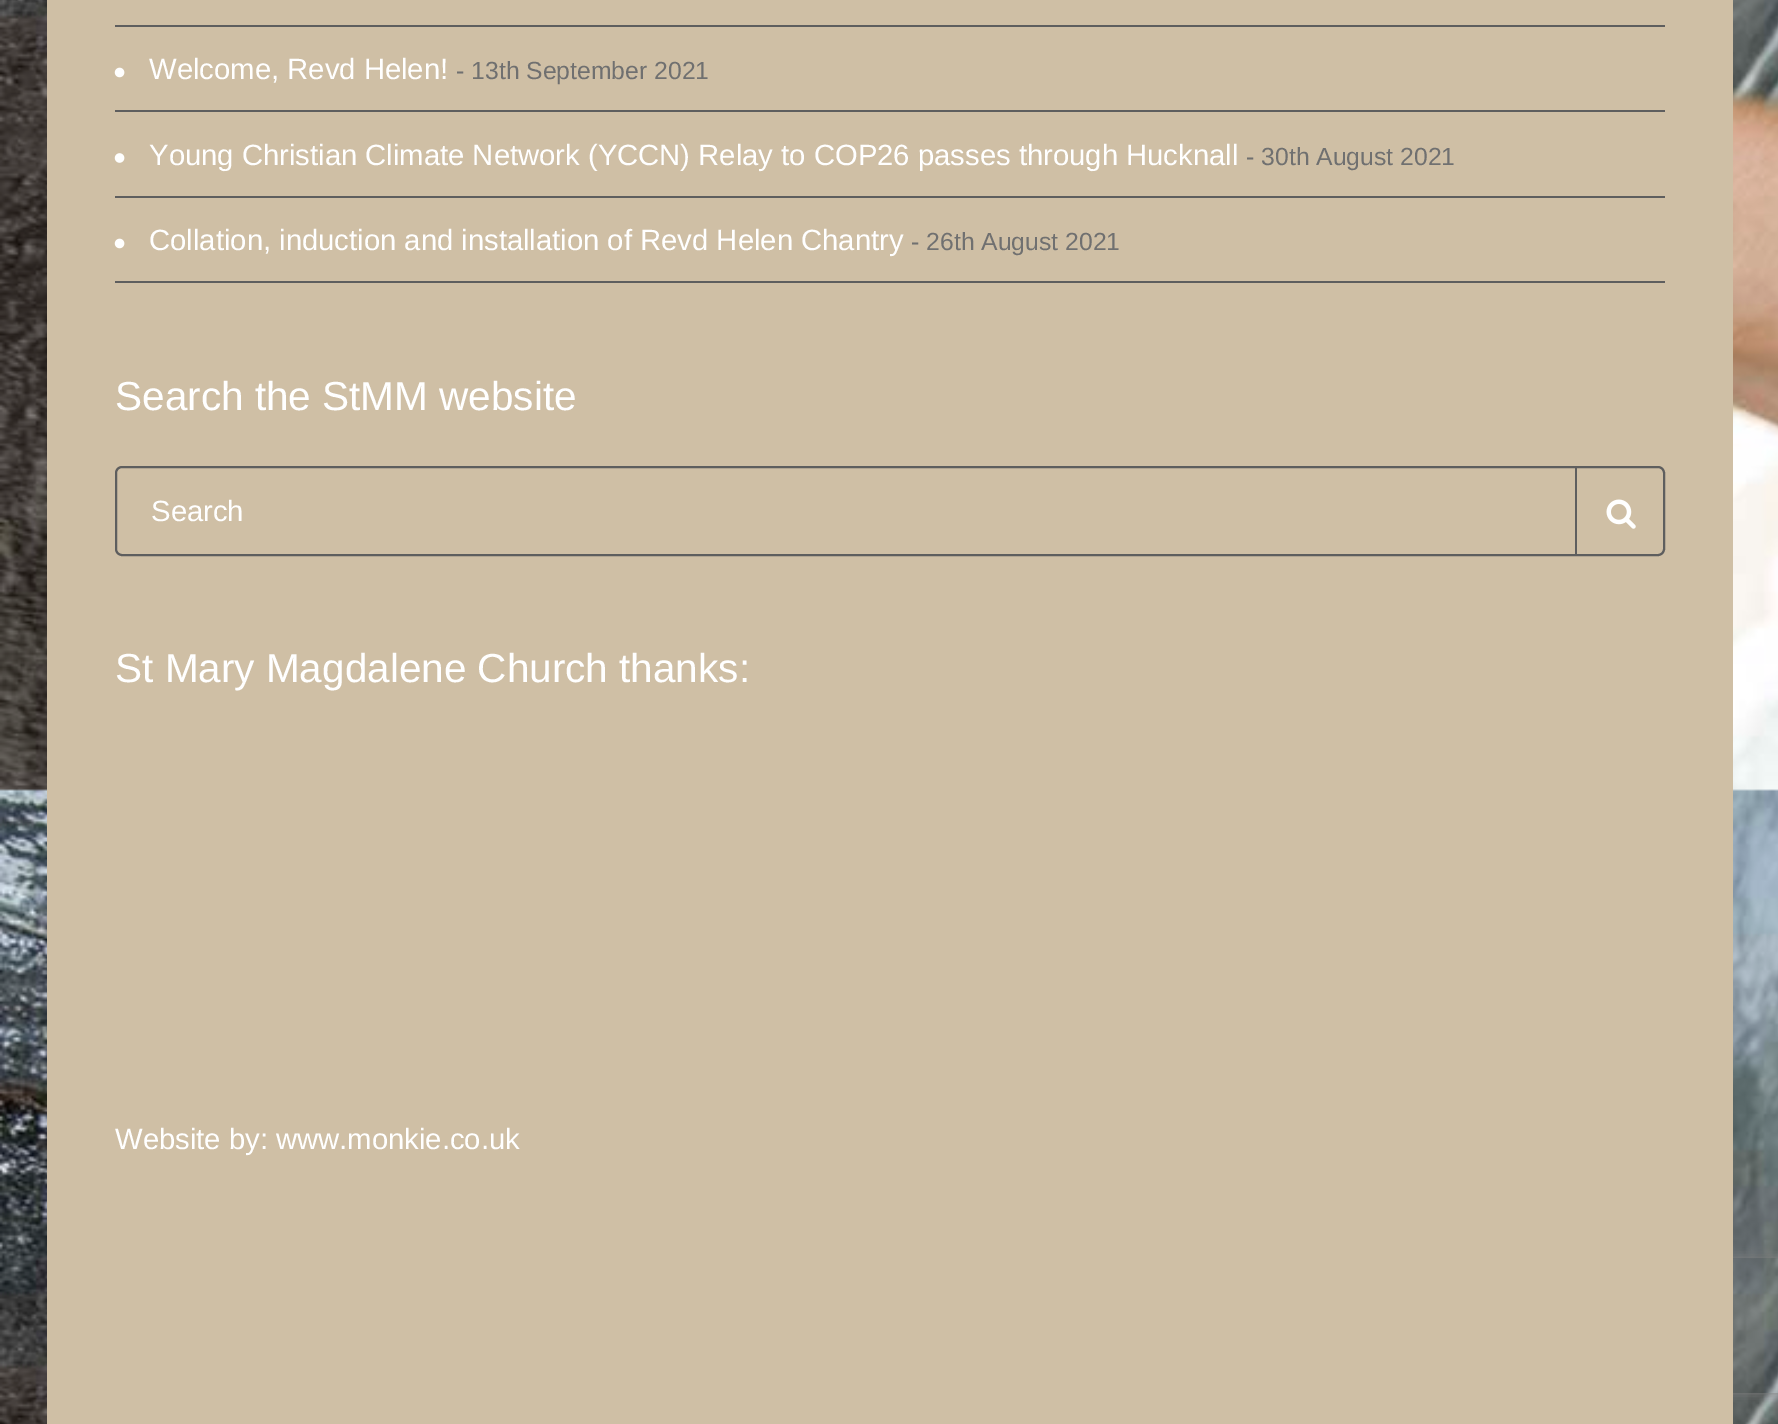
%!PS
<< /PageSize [1778 1424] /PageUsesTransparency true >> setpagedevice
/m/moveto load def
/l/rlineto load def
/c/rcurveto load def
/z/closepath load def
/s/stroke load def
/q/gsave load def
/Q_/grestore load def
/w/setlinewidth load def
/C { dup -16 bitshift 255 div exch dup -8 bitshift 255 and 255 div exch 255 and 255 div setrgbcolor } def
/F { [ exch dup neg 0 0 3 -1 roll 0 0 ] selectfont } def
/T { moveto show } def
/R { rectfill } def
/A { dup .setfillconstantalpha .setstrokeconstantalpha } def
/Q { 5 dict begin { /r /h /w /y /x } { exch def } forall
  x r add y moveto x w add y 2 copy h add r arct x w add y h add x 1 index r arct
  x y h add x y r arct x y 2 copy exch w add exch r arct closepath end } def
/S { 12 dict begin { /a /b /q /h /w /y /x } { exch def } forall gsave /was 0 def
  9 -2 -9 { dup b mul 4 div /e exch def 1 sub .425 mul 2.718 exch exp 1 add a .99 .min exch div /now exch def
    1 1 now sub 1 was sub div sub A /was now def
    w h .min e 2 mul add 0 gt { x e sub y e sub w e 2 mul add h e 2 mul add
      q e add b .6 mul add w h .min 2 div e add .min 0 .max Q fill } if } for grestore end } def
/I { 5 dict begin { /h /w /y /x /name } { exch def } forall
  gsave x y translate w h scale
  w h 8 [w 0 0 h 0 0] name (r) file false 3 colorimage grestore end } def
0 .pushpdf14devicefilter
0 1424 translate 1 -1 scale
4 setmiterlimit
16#FFFFFF C
0 0 1778 1424 R
(1.rgb) 0 0 1778 1424 I
q
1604 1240 m 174 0 l 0 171 l -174 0 l z 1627 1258 m 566 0 l 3 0 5 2 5 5 c 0 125 l 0 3 -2 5 -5 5 c -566 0 l -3 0 -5 -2 -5 -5 c 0 -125 l 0 -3 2 -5 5 -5 c z eoclip newpath
16#808080 C
1622 1258 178 135 5 5.5 1 S
Q_
16#CFBFA5 C
47 0 1686 1424 R
16#5E5E5E C
115 25 1550 2 R
115 110 1550 2 R
(2.rgb) 114 67 11 11 I
/LiberationSans-Regular 29.25 F
16#FFFFFF C
(Welcome, Revd Helen!) 149 79 T
/LiberationSans-Regular 24.75 F
16#707070 C
(- 13th September 2021) 456 79 T
16#5E5E5E C
115 196 1550 2 R
(3.rgb) 114 153 11 10 I
/LiberationSans-Regular 29.25 F
16#FFFFFF C
(Young Christian Climate Network \(YCCN\) Relay to COP26 passes through Hucknall) 149 165 T
/LiberationSans-Regular 24.75 F
16#707070 C
(- 30th August 2021) 1246 165 T
16#5E5E5E C
115 281 1550 2 R
(2.rgb) 114 238 11 11 I
/LiberationSans-Regular 29.25 F
16#FFFFFF C
(Collation, induction and installation of Revd Helen Chantry) 149 250 T
/LiberationSans-Regular 24.75 F
16#707070 C
(- 26th August 2021) 911 250 T
/LiberationSans-Regular 40.5 F
16#FFFFFF C
(Search the StMM website) 115 410 T
16#5E5E5E C
2 w
116 467 1548 88 6 Q s
/LiberationSans-Regular 29.25 F
16#FFFFFF C
(Search) 151 521 T
16#5E5E5E C
1575 468 2 86 R
(4.rgb) 1606 499 30 30 I
/LiberationSans-Regular 40.5 F
16#FFFFFF C
(St Mary Magdalene Church thanks:) 115 682 T
/LiberationSans-Regular 29.25 F
(Website by: www.monkie.co.uk) 115 1149 T
.poppdf14devicefilter showpage
